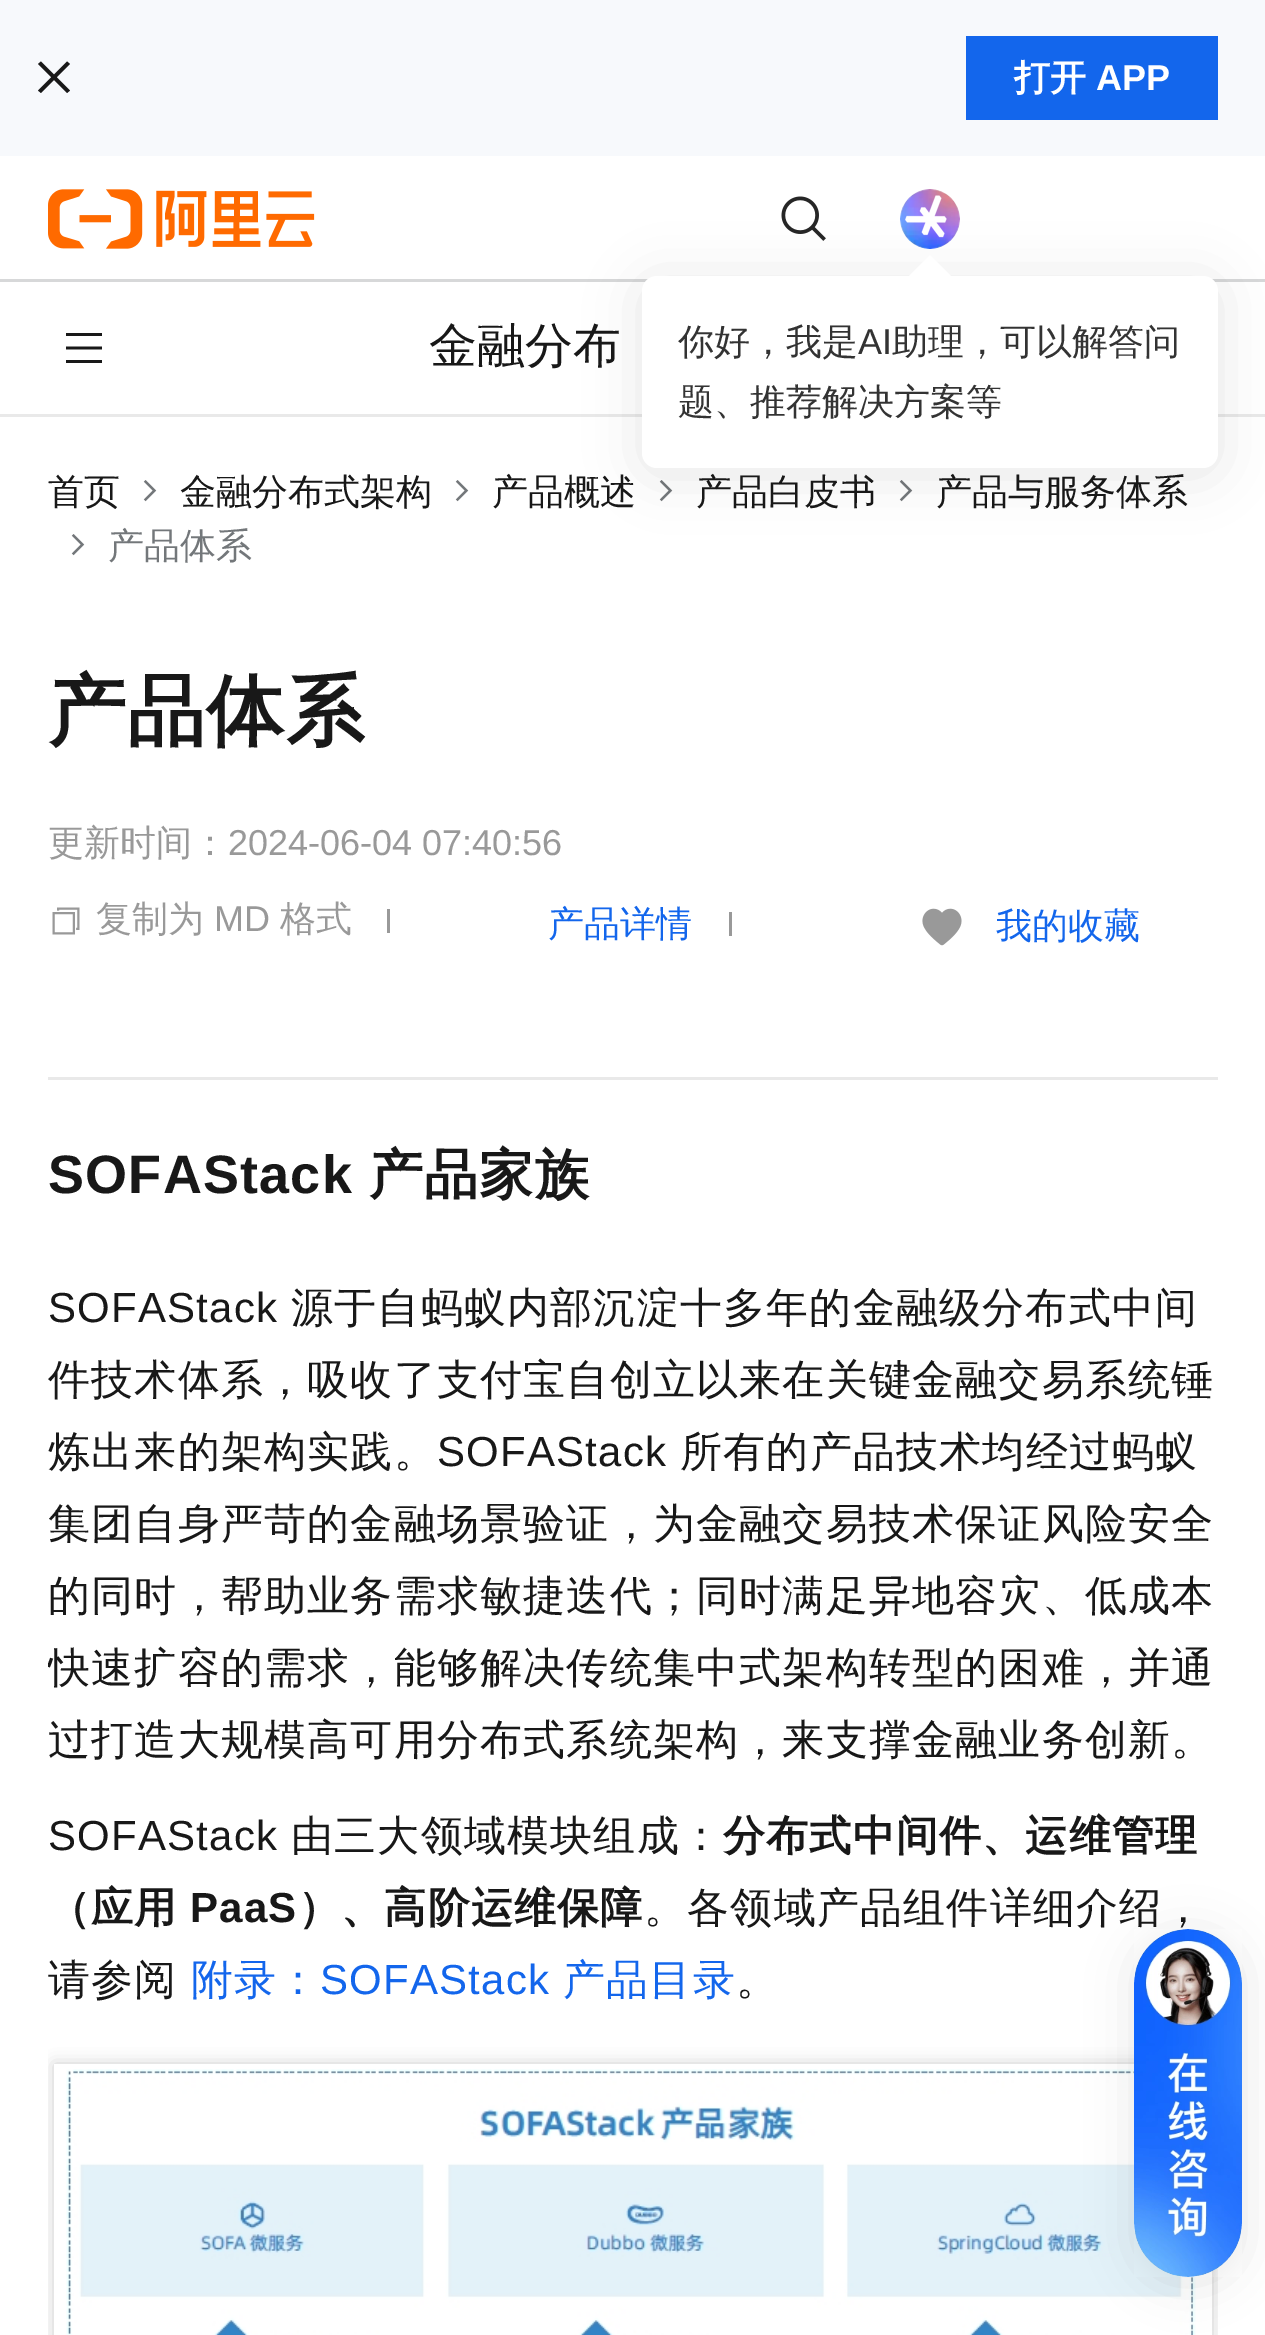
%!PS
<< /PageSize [1265 2335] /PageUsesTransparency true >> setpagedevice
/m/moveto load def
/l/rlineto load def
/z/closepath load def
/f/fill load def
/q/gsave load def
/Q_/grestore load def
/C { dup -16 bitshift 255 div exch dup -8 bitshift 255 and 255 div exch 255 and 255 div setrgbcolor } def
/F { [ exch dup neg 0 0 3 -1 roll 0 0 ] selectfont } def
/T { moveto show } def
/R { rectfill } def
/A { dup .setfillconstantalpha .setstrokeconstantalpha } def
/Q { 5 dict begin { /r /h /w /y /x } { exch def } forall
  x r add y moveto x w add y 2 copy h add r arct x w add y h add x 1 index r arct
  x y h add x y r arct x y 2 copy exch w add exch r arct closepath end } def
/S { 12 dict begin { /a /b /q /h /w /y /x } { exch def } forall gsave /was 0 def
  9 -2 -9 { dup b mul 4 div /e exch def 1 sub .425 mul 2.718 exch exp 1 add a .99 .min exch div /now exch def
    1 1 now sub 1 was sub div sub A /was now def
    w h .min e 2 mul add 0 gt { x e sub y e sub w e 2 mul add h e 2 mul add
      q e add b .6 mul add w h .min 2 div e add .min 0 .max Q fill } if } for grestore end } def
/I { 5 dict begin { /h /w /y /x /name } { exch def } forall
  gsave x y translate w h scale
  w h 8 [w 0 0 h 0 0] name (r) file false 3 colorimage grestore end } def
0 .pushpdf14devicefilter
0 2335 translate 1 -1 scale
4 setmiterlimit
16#FFFFFF C
0 0 1265 2335 R
16#F7F9FC C
0 0 1265 156 R
16#181818 C
41 61.5 m 29 29 l -3 2.5 l -29 -29 l z 67 61.5 m 3 2.5 l -29 29 l -3 -2.5 l z f
16#1366EC C
966 36 252 84 R
/WenQuanYiZenHei-Bold 36 F
16#FFFFFF C
(打开) 1014 90 T
/LiberationSans-Bold 36 F
(APP) 1096 90 T
16#D7D8D9 C
0 279 1265 3 R
(1.rgb) 48 189 267 60 I
(2.rgb) 781 196 45 45 I
(3.rgb) 900 189 60 60 I
(4.rgb) 905 195 42 43 I
16#E9E9E9 C
0 414 1265 3 R
(6.rgb) 659 480 14 22 I
(6.rgb) 899 480 14 22 I
16#000000 C
642 282 576 192 15 27 .1 S
16#FFFFFF C
642 276 576 192 15 Q f
930 255 m 21 21 l -21 21 l -21 -21 l z f
/WenQuanYiZenHei-Medium 36 F
16#333333 C
(你好，我是) 678 354 T
/LiberationSans-Regular 36 F
(AI) 858 354 T
/WenQuanYiZenHei-Medium 36 F
(助理，可以解答问) 892 354 T
(题、推荐解决方案等) 678 414 T
(5.rgb) 66 333 36 30 I
/WenQuanYiZenHei-Medium 48 F
16#181818 C
(金融分布) 429 362 T
/WenQuanYiZenHei-Medium 36 F
(首页) 48 504 T
(6.rgb) 143 480 14 22 I
(金融分布式架构) 180 504 T
(6.rgb) 455 480 14 22 I
(产品概述) 492 504 T
(产品白皮书) 696 504 T
(产品与服务体系) 936 504 T
(6.rgb) 71 534 14 22 I
16#73777A C
(产品体系) 108 558 T
/WenQuanYiZenHei-Bold 78 F
16#181818 C
48 738 m 1.2 0 (产品体系) ashow
/WenQuanYiZenHei-Medium 36 F
16#999999 C
(更新时间：) 48 855 T
/LiberationSans-Regular 36 F
(2024-06-04 07:40:56) 228 855 T
(7.rgb) 52 907 28 28 I
/WenQuanYiZenHei-Medium 36 F
(复制为) 96 931 T
/LiberationSans-Regular 36 F
(MD) 214 931 T
/WenQuanYiZenHei-Medium 36 F
(格式) 280 931 T
387 909 3 24 R
16#1366EC C
(产品详情) 548 936 T
16#999999 C
729 912 3 24 R
(8.rgb) 922 908 40 38 I
16#1366EC C
(我的收藏) 996 938 T
16#E9E9E9 C
48 1077 1170 3 R
/LiberationSans-Bold 54 F
16#181818 C
48 1193 m 1.2 0 (SOFAStack) ashow
/WenQuanYiZenHei-Bold 54 F
369 1193 m 1.2 0 (产品家族) ashow
/LiberationSans-Regular 42 F
48 1322 m 1.2 0 (SOFAStack) ashow
/WenQuanYiZenHei-Medium 42 F
291 1322 m 1.2 0 (源于自蚂蚁内部沉淀十多年的金融级分布式中间) ashow
48 1394 m 1.2 0 (件技术体系，吸收了支付宝自创立以来在关键金融交易系统锤) ashow
48 1466 m 1.2 0 (炼出来的架构实践。) ashow
/LiberationSans-Regular 42 F
437 1466 m 1.2 0 (SOFAStack) ashow
/WenQuanYiZenHei-Medium 42 F
680 1466 m 1.2 0 (所有的产品技术均经过蚂蚁) ashow
48 1538 m 1.2 0 (集团自身严苛的金融场景验证，为金融交易技术保证风险安全) ashow
48 1610 m 1.2 0 (的同时，帮助业务需求敏捷迭代；同时满足异地容灾、低成本) ashow
q
48 1029 1170 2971 rectclip
48 1682 m 1.2 0 (快速扩容的需求，能够解决传统集中式架构转型的困难，并通) ashow
Q_
48 1754 m 1.2 0 (过打造大规模高可用分布式系统架构，来支撑金融业务创新。) ashow
/LiberationSans-Regular 42 F
48 1850 m 1.2 0 (SOFAStack) ashow
/WenQuanYiZenHei-Medium 42 F
291 1850 m 1.2 0 (由三大领域模块组成：) ashow
/WenQuanYiZenHei-Bold 42 F
723 1850 m 1.2 0 (分布式中间件、运维管理) ashow
48 1922 m 1.2 0 (（应用) ashow
/LiberationSans-Bold 42 F
190 1922 m 1.2 0 (PaaS) ashow
/WenQuanYiZenHei-Bold 42 F
298 1922 m 1.2 0 (）、高阶运维保障) ashow
/WenQuanYiZenHei-Medium 42 F
644 1922 m 1.2 0 (。各领域产品组件详细介绍，) ashow
48 1994 m 1.2 0 (请参阅) ashow
16#1366EC C
191 1994 m 1.2 0 (附录：) ashow
/LiberationSans-Regular 42 F
320 1994 m 1.2 0 (SOFAStack) ashow
/WenQuanYiZenHei-Medium 42 F
563 1994 m 1.2 0 (产品目录) ashow
16#181818 C
736 1994 m 1.2 0 (。) ashow
q
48 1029 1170 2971 rectclip
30 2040 m 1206 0 l 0 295 l -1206 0 l z 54 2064 m 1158 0 l 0 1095 l -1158 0 l z eoclip newpath
16#CCCCCC C
54 2064 1158 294 0 7.5 1 S
Q_
(9.rgb) 66 2069 1130 266 I
16#000000 C
1134 1935 108 348 54 22.5 .1 S
(10.rgb) 1134 1929 108 348 I
.poppdf14devicefilter showpage
